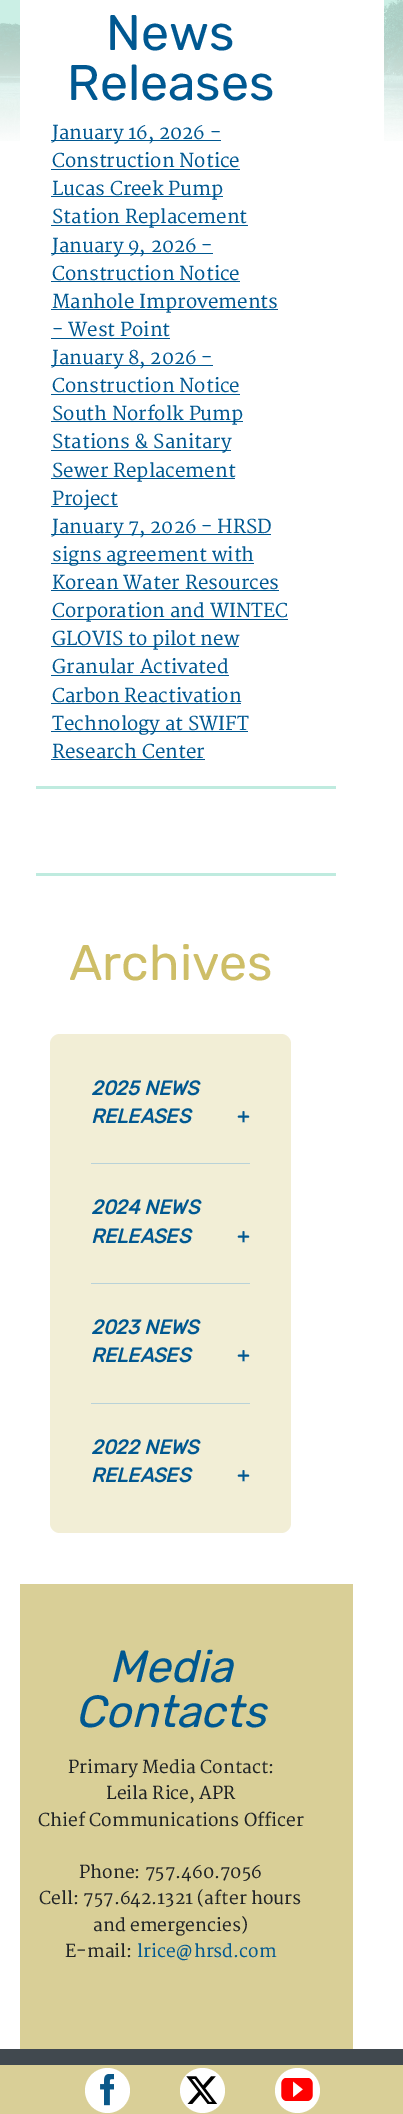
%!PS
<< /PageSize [403 2114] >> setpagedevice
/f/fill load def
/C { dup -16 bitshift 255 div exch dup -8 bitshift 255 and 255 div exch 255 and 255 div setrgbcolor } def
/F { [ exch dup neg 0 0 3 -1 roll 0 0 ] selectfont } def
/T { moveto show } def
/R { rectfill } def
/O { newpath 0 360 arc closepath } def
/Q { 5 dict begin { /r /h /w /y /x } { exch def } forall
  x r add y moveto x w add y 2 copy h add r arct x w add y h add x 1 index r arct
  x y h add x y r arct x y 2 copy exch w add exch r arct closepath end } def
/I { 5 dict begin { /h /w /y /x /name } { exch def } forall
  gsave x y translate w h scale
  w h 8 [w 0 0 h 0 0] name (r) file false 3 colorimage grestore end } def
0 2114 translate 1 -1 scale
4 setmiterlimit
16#FFFFFF C
0 0 403 2114 R
(1.rgb) 0 0 403 141 I
20 0 364 141 R
/Rubik-Regular 50 F
16#005891 C
(News) 106 50 T
(Releases) 67 100 T
51 140 170 1 R
/Merriweather-Regular 18.75 F
(January 16, 2026 -) 52 139 T
(Construction Notice) 52 167 T
51 169 189 1 R
51 196 172 1 R
(Lucas Creek Pump) 52 195 T
51 225 197 1 R
(Station Replacement) 52 223 T
51 253 162 1 R
(January 9, 2026 -) 52 252 T
(Construction Notice) 52 280 T
51 281 189 1 R
51 309 227 1 R
(Manhole Improvements) 52 308 T
(- West Point) 52 336 T
51 338 119 1 R
51 365 162 1 R
(January 8, 2026 -) 52 364 T
(Construction Notice) 52 392 T
51 394 189 1 R
51 421 192 1 R
(South Norfolk Pump) 52 420 T
51 450 180 1 R
(Stations & Sanitary) 52 448 T
51 478 184 1 R
(Sewer Replacement) 52 477 T
51 506 67 1 R
(Project) 52 505 T
51 534 220 1 R
(January 7, 2026 - HRSD) 52 533 T
51 563 203 1 R
(signs agreement with) 52 561 T
(Korean Water Resources) 52 589 T
51 590 228 1 R
51 619 237 1 R
(Corporation and WINTEC) 52 617 T
51 646 188 1 R
(GLOVIS to pilot new) 52 645 T
(Granular Activated) 52 673 T
51 675 178 1 R
(Carbon Reactivation) 52 702 T
51 703 190 1 R
51 731 197 1 R
(Technology at SWIFT) 52 730 T
(Research Center) 52 758 T
51 759 154 1 R
16#BFEBDF C
36 786 300 3 R
36 873 300 3 R
/Rubik-Regular 50 F
16#CEBE67 C
(Archives) 69 980 T
16#F2EED6 C
50 1034 241 499 10 Q f
/Rubik-BoldItalic 20 F
16#005891 C
(2025 NEWS) 91 1095 T
(RELEASES) 91 1123 T
/Rubik-Bold 20 F
(+) 237 1123 T
16#B9D2D8 C
91 1163 159 1 R
/Rubik-BoldItalic 20 F
16#005891 C
(2024 NEWS) 91 1214 T
(RELEASES) 91 1243 T
/Rubik-Bold 20 F
(+) 237 1243 T
16#B9D2D8 C
91 1283 159 1 R
/Rubik-BoldItalic 20 F
16#005891 C
(2023 NEWS) 91 1334 T
(RELEASES) 91 1362 T
/Rubik-Bold 20 F
(+) 237 1362 T
16#B9D2D8 C
91 1403 159 1 R
/Rubik-BoldItalic 20 F
16#005891 C
(2022 NEWS) 91 1454 T
(RELEASES) 91 1482 T
/Rubik-Bold 20 F
(+) 237 1482 T
16#D9CF97 C
20 1584 333 465 R
/Rubik-Italic 45 F
16#005891 C
(Media) 109 1682 T
(Contacts) 75 1727 T
/Merriweather-Regular 17.5 F
16#1E2225 C
(Primary Media Contact:) 68 1773 T
(Leila Rice, APR) 106 1799 T
(Chief Communications Officer) 38 1826 T
(Phone: 757.460.7056) 79 1878 T
(Cell: 757.642.1321 \(after hours) 39 1904 T
(and emergencies\)) 93 1931 T
(E-mail:) 65 1957 T
16#005891 C
(lrice@hrsd.com) 137 1957 T
16#41494F C
0 2049 403 16 R
16#D9CF97 C
0 2065 403 49 R
16#FFFFFF C
107.5 2090.5 22.5 O f
(2.rgb) 100 2074 14 32 I
202.5 2090.5 22.5 O f
(3.rgb) 186 2076 32 28 I
297.5 2090.5 22.5 O f
(4.rgb) 281 2078 32 23 I
showpage
